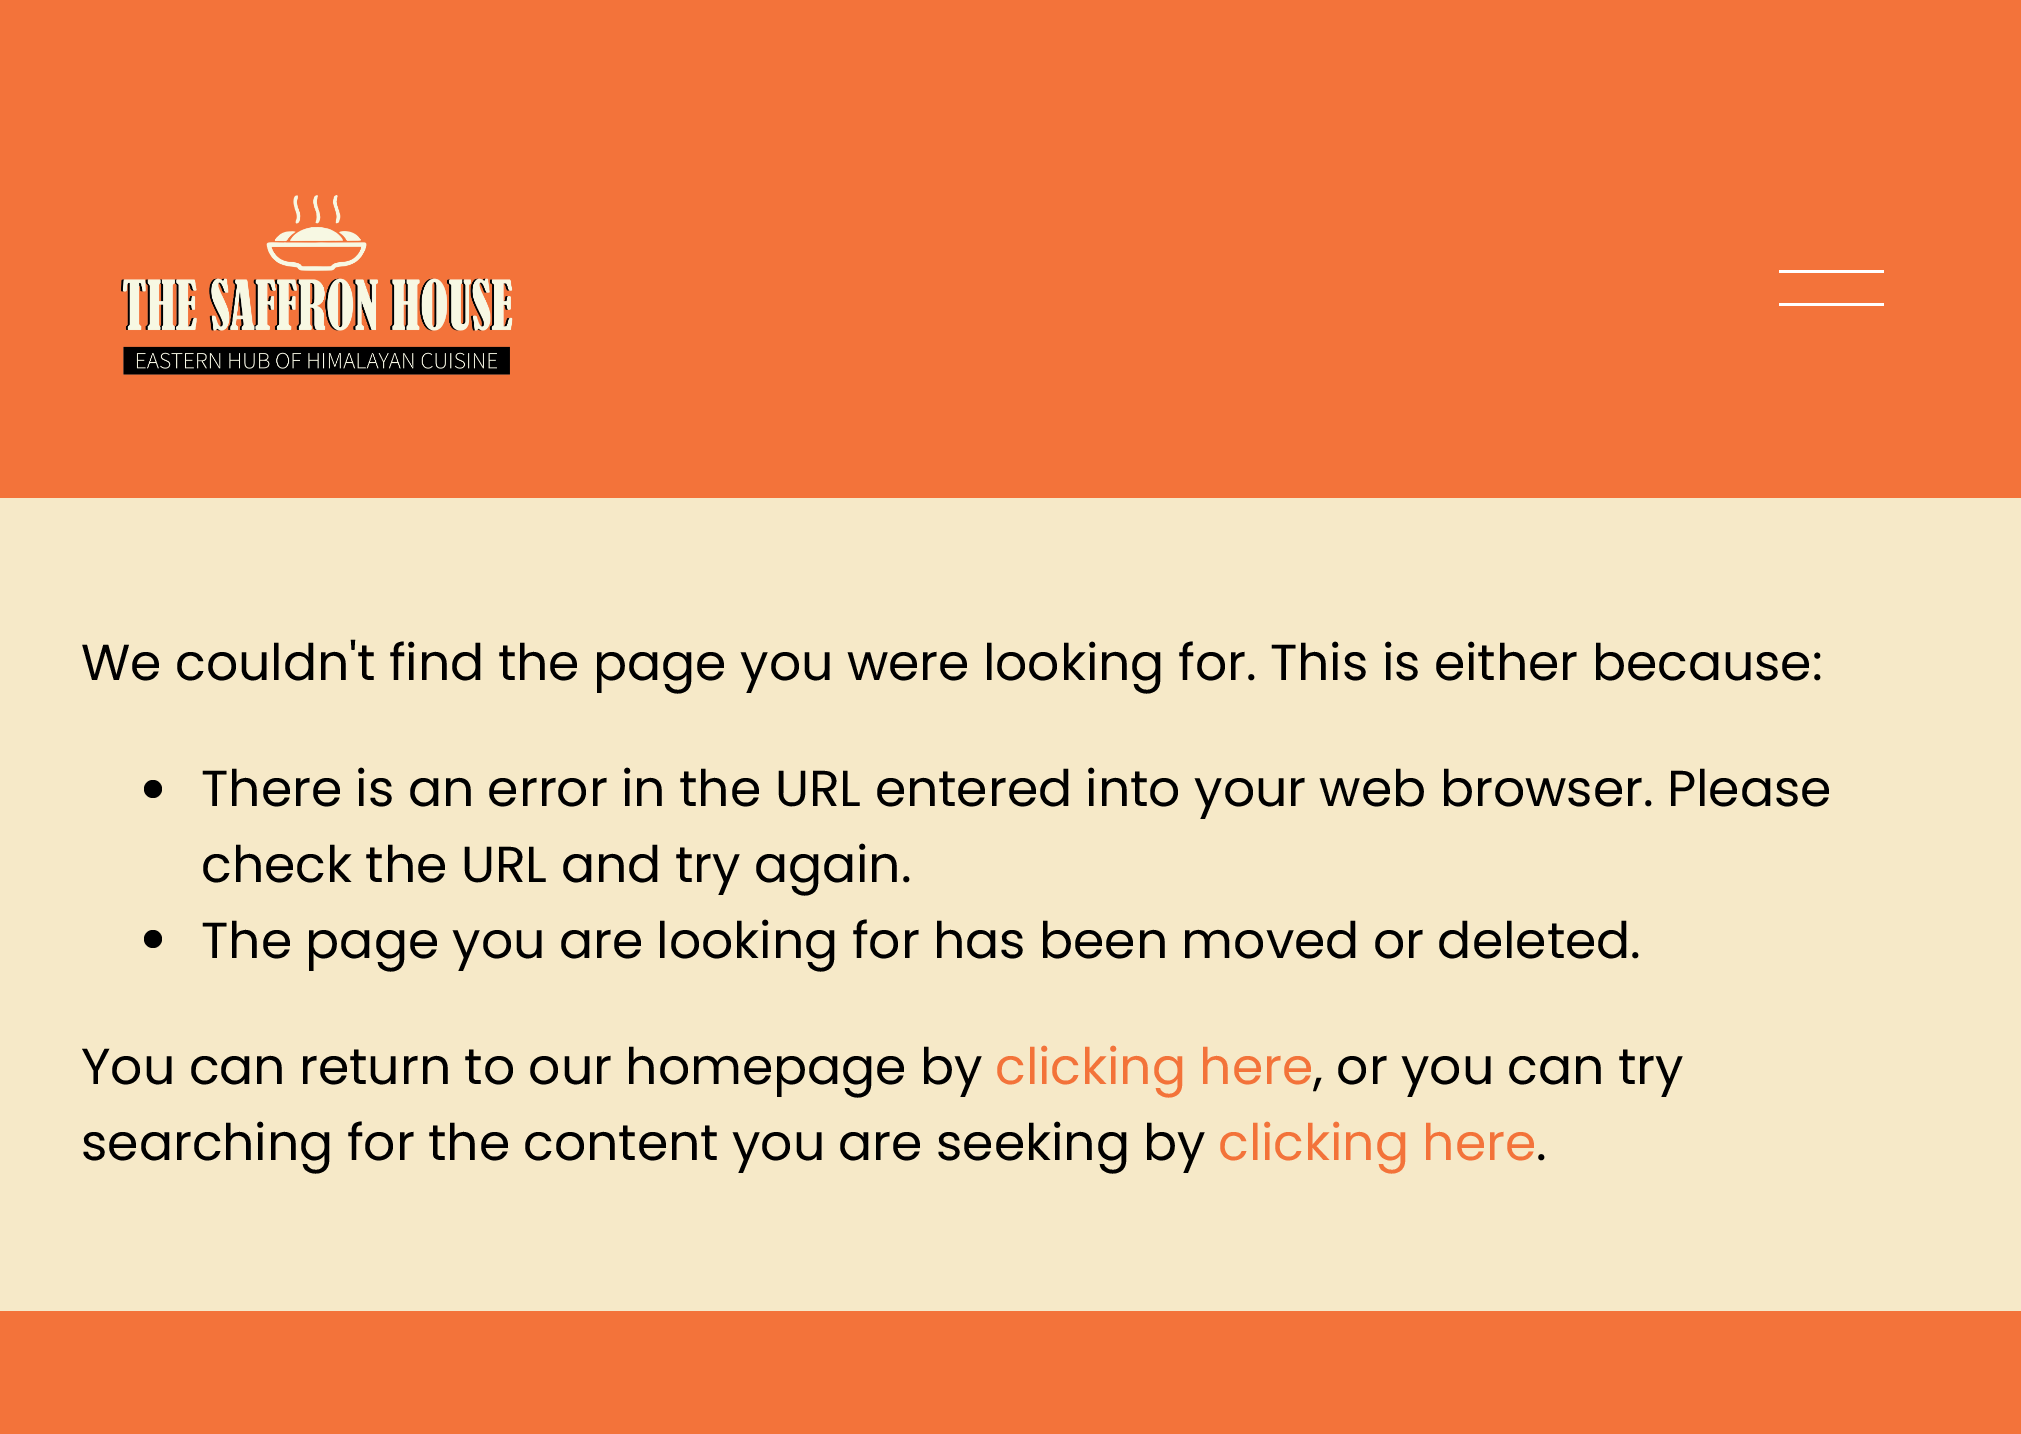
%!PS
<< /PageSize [2021 1434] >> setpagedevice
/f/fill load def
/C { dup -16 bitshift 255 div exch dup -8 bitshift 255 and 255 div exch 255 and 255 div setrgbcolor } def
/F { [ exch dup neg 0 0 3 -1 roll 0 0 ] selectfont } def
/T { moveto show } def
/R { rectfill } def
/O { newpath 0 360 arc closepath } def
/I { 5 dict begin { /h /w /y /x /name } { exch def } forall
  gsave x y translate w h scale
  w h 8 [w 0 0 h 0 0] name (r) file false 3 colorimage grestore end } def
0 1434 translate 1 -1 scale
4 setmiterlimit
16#F6E9C8 C
0 0 2021 1434 R
16#F3733A C
0 0 2021 498 R
(1.rgb) 120 195 393 180 I
16#FFFFFF C
1779 270 105 3 R
1779 303 105 3 R
/Poppins-Regular 50.45 F
16#000000 C
(We couldn't find the page you were looking for. This is either because:) 81 680 T
153 789 9 O f
(There is an error in the URL entered into your web browser. Please) 201 806 T
(check the URL and try again.) 201 882 T
153 939 9 O f
(The page you are looking for has been moved or deleted.) 201 958 T
(You can return to our homepage by) 81 1084 T
16#F3733A C
(clicking here) 995 1084 T
16#000000 C
(, or you can try) 1313 1084 T
(searching for the) 81 1160 T
(content you are seeking by) 523 1160 T
16#F3733A C
(clicking here) 1218 1160 T
16#000000 C
(.) 1536 1160 T
16#F3733A C
0 1311 2021 123 R
showpage
